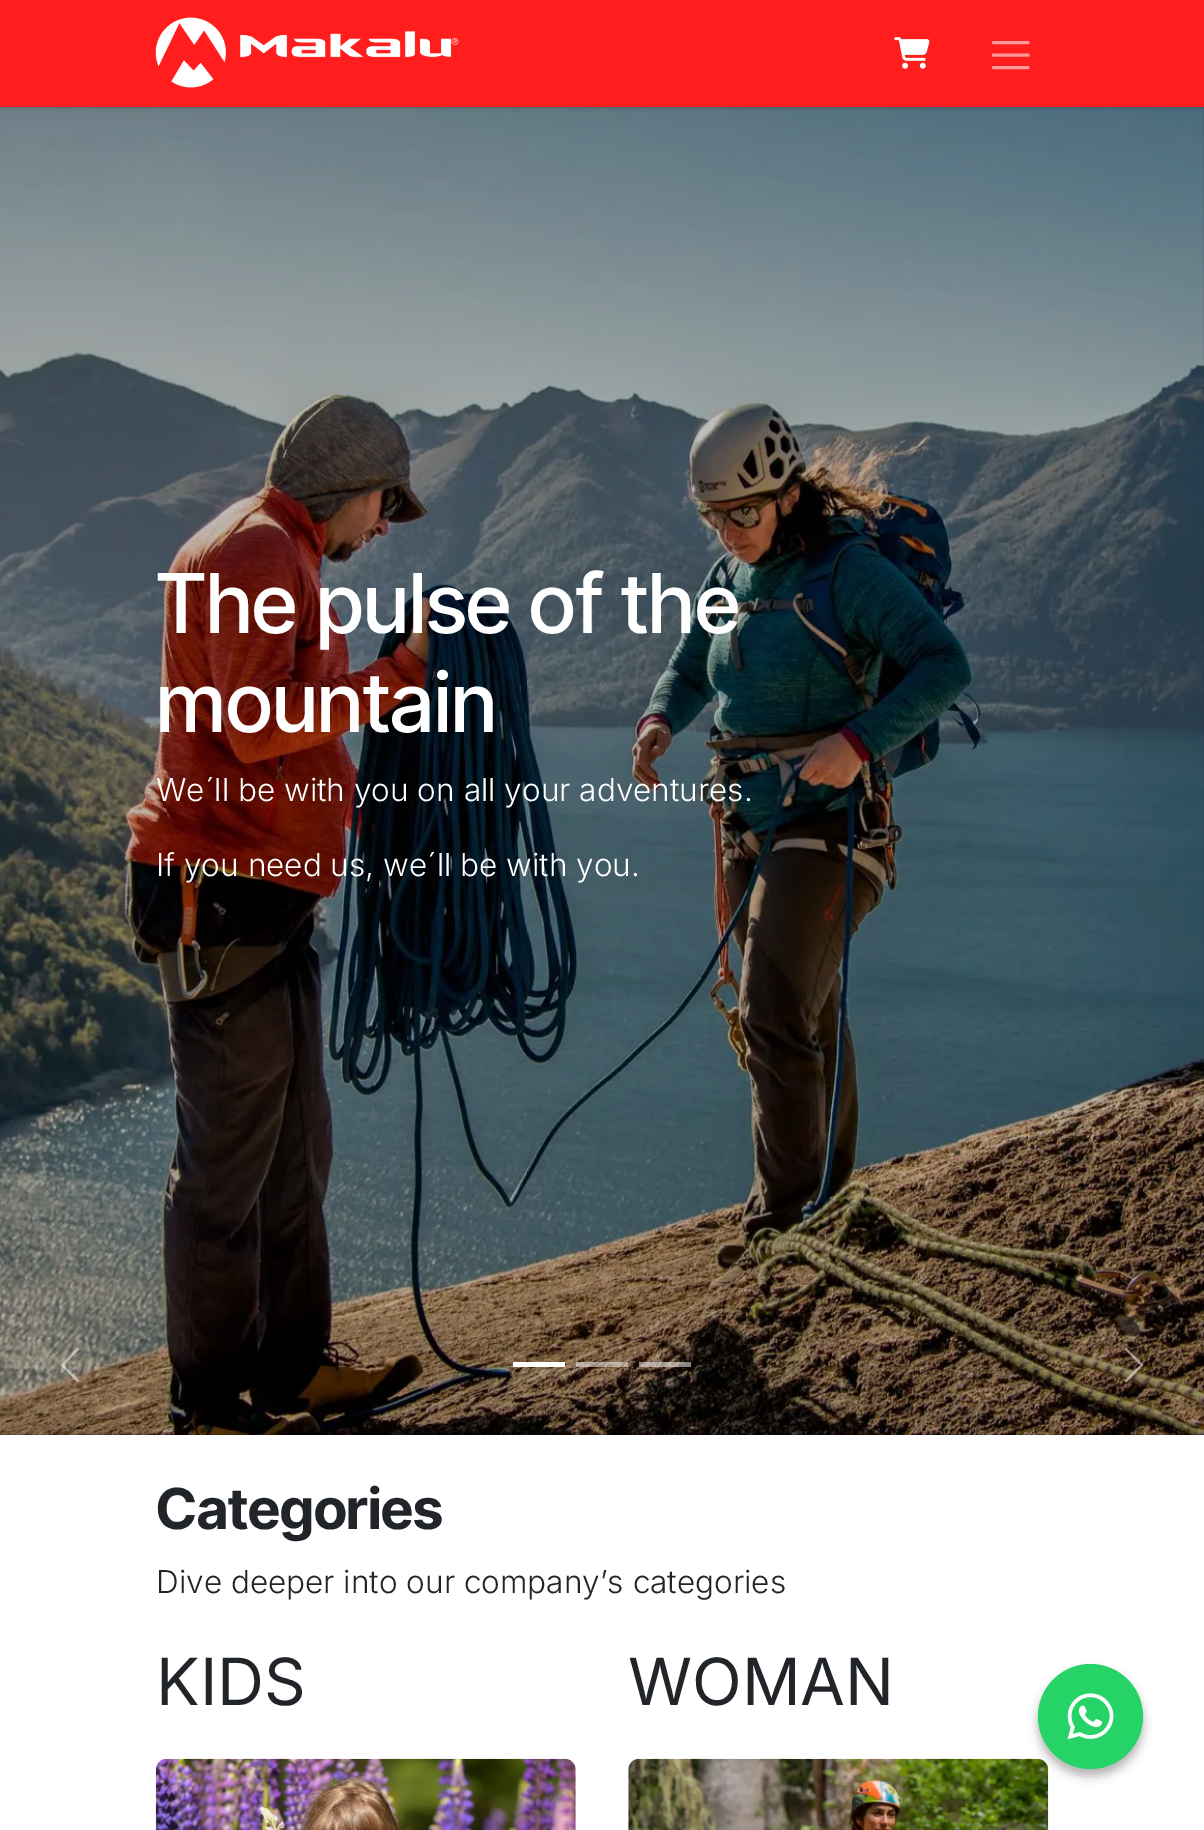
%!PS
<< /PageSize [1204 1830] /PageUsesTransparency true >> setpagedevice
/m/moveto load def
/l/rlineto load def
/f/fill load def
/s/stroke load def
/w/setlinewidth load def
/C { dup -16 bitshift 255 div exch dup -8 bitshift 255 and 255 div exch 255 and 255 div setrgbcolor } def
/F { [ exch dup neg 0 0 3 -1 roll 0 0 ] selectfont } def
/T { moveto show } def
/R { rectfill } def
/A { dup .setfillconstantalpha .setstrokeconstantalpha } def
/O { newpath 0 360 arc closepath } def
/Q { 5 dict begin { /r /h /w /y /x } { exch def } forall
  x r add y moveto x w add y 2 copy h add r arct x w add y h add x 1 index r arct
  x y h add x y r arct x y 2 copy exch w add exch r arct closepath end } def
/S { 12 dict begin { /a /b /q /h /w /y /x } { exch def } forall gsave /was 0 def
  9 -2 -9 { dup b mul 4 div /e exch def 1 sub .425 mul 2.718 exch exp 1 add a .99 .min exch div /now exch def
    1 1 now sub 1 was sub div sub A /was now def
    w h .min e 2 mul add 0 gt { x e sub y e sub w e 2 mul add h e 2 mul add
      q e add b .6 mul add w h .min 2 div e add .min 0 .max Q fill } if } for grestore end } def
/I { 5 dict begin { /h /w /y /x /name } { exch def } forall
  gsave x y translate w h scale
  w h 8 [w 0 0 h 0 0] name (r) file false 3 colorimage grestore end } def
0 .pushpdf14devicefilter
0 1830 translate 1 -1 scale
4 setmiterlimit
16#FFFFFF C
0 0 1204 1830 R
(3.rgb) 0 107 1204 1328 I
16#000000 C
0 2 1204 107 0 2.5 .1 S
16#FF1D1D C
0 0 1204 107 R
(1.rgb) 155 17 304 71 I
(2.rgb) 894 37 36 32 I
16#FF9999 C
3.1 w
1 setlinecap
993.5 42.5 m 34.5 0 l 993.5 55 m 34.5 0 l 993.5 67.5 m 34.5 0 l s
/InterTight-Medium 82.5 F
16#FFFFFF C
(The pulse of the) 156 633 T
(mountain) 156 732 T
/Inter-Light 31.5 F
(We´ll be with you on all your adventures.) 156 801 T
(If you need us, we´ll be with you.) 156 876 T
(4.rgb) 60 1348 20 34 I
513 1362 52 5 R
0.5 A
576 1362 52 5 R
639 1362 52 5 R
1 A
(5.rgb) 1124 1348 20 34 I
/InterTight-Bold 56.5 F
16#212529 C
(Categories) 156 1529 T
/Inter-Light 31.5 F
(Dive deeper into our company’s categories) 156 1593 T
/Inter-Regular 65 F
(KIDS) 156 1705 T
(6.rgb) 155 1758 421 72 I
(WOMAN) 628 1705 T
(7.rgb) 628 1758 421 72 I
16#000000 C
1038 1671 105 105 52.5 5 .3 S
16#25D366 C
1090.5 1716.5 52.5 O f
(8.rgb) 1067 1693 47 47 I
.poppdf14devicefilter showpage
